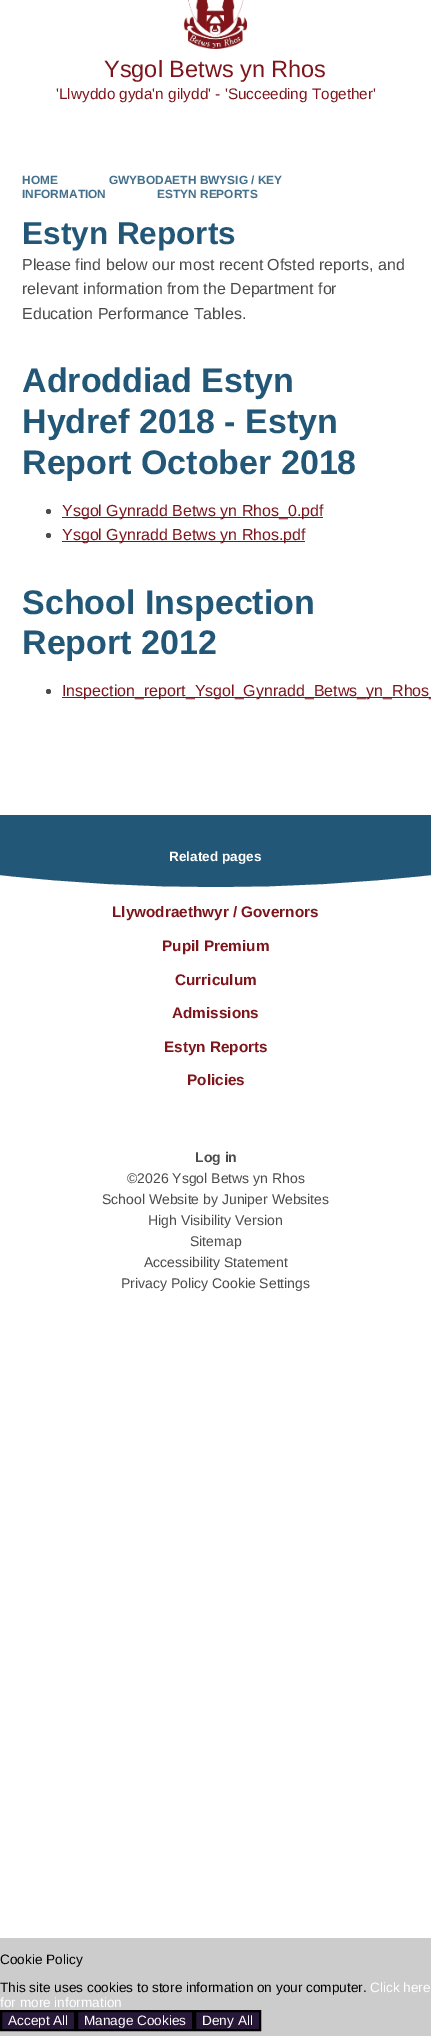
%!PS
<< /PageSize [431 2036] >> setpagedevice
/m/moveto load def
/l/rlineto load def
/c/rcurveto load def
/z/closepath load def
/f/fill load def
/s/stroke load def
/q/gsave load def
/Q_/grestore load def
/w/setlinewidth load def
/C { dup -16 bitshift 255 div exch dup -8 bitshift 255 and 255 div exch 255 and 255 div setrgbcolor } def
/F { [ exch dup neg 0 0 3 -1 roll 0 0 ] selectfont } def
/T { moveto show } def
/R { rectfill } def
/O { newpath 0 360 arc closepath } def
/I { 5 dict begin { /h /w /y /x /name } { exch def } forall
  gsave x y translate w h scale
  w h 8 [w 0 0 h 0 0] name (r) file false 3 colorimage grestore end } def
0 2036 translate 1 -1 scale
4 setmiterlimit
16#CCCCCC C
0 0 431 2036 R
16#FFFFFF C
0 0 431 1938 R
(1.rgb) 183 0 65 49 I
/LiberationSans-Regular 23.5 F
16#7D161C C
(Ysgol Betws yn Rhos) 104 77 T
/LiberationSans-Regular 15.3 F
('Llwyddo gyda'n gilydd' - 'Succeeding Together') 56 99 T
/LiberationSans-Bold 11.9 F
16#44708C C
(HOME) 22 184 T
(GWYBODAETH BWYSIG / KEY) 109 184 T
(INFORMATION) 22 198 T
(ESTYN REPORTS) 157 198 T
/LiberationSans-Bold 31.5 F
16#235778 C
(Estyn Reports) 22 244 T
/LiberationSans-Regular 16 F
16#4B4B4B C
(Please find below our most recent Ofsted reports, and) 22 270 T
(relevant information from the Department for) 22 294 T
(Education Performance Tables.) 22 319 T
/LiberationSans-Bold 34 F
16#235778 C
(Adroddiad Estyn) 22 392 T
(Hydref 2018 - Estyn) 22 433 T
(Report October 2018) 22 474 T
16#4B4B4B C
48.5 511.5 2.5 O f
16#7D161C C
62 517 261 1 R
/LiberationSans-Regular 16 F
(Ysgol Gynradd Betws yn Rhos_0.pdf) 62 516 T
16#4B4B4B C
48.5 535.5 2.5 O f
16#7D161C C
62 541 243 1 R
(Ysgol Gynradd Betws yn Rhos.pdf) 62 540 T
/LiberationSans-Bold 34 F
16#235778 C
(School Inspection) 22 614 T
(Report 2012) 22 654 T
16#4B4B4B C
48.5 691.5 2.5 O f
16#7D161C C
62 697 369 1 R
/LiberationSans-Regular 16 F
(Inspection_report_Ysgol_Gynradd_Betws_yn_Rhos_) 62 696 T
16#235778 C
0 815 431 49 R
/LiberationSans-Bold 13.6 F
16#FFFFFF C
(Related pages) 169 861 T
16#235778 C
431 864 m -431 0 l 0 11 l 143 16 288 16 431 0 c z f
/LiberationSans-Bold 15.3 F
16#7D161C C
(Llywodraethwyr / Governors) 112 917 T
(Pupil Premium) 162 951 T
(Curriculum) 175 985 T
(Admissions) 172 1018 T
(Estyn Reports) 164 1052 T
(Policies) 187 1085 T
/LiberationSans-Bold 14 F
16#4B4B4B C
(Log in) 195 1162 T
/LiberationSans-Regular 14 F
(©2026 Ysgol Betws yn Rhos) 127 1183 T
(School Website by Juniper Websites) 102 1204 T
(High Visibility Version) 148 1225 T
(Sitemap) 190 1246 T
(Accessibility Statement) 144 1267 T
(Privacy Policy Cookie Settings) 121 1288 T
/LiberationSans-Regular 13.6 F
16#000000 C
(Cookie Policy) 0 1964 T
(This site uses cookies to store information on your computer.) 0 1992 T
16#FFFFFF C
(Click here) 370 1992 T
(for more information) 0 2007 T
16#281838 C
1 2011 m 74 0 l 0 19 l -74 0 l z q f Q_
16#000000 C
2 w
s
16#FFFFFF C
(Accept All) 8 2025 T
16#281838 C
77 2011 m 116 0 l 0 19 l -116 0 l z q f Q_
16#000000 C
s
16#FFFFFF C
(Manage Cookies) 84 2025 T
16#281838 C
195 2011 m 65 0 l 0 19 l -65 0 l z q f Q_
16#000000 C
s
16#FFFFFF C
(Deny All) 202 2025 T
showpage
